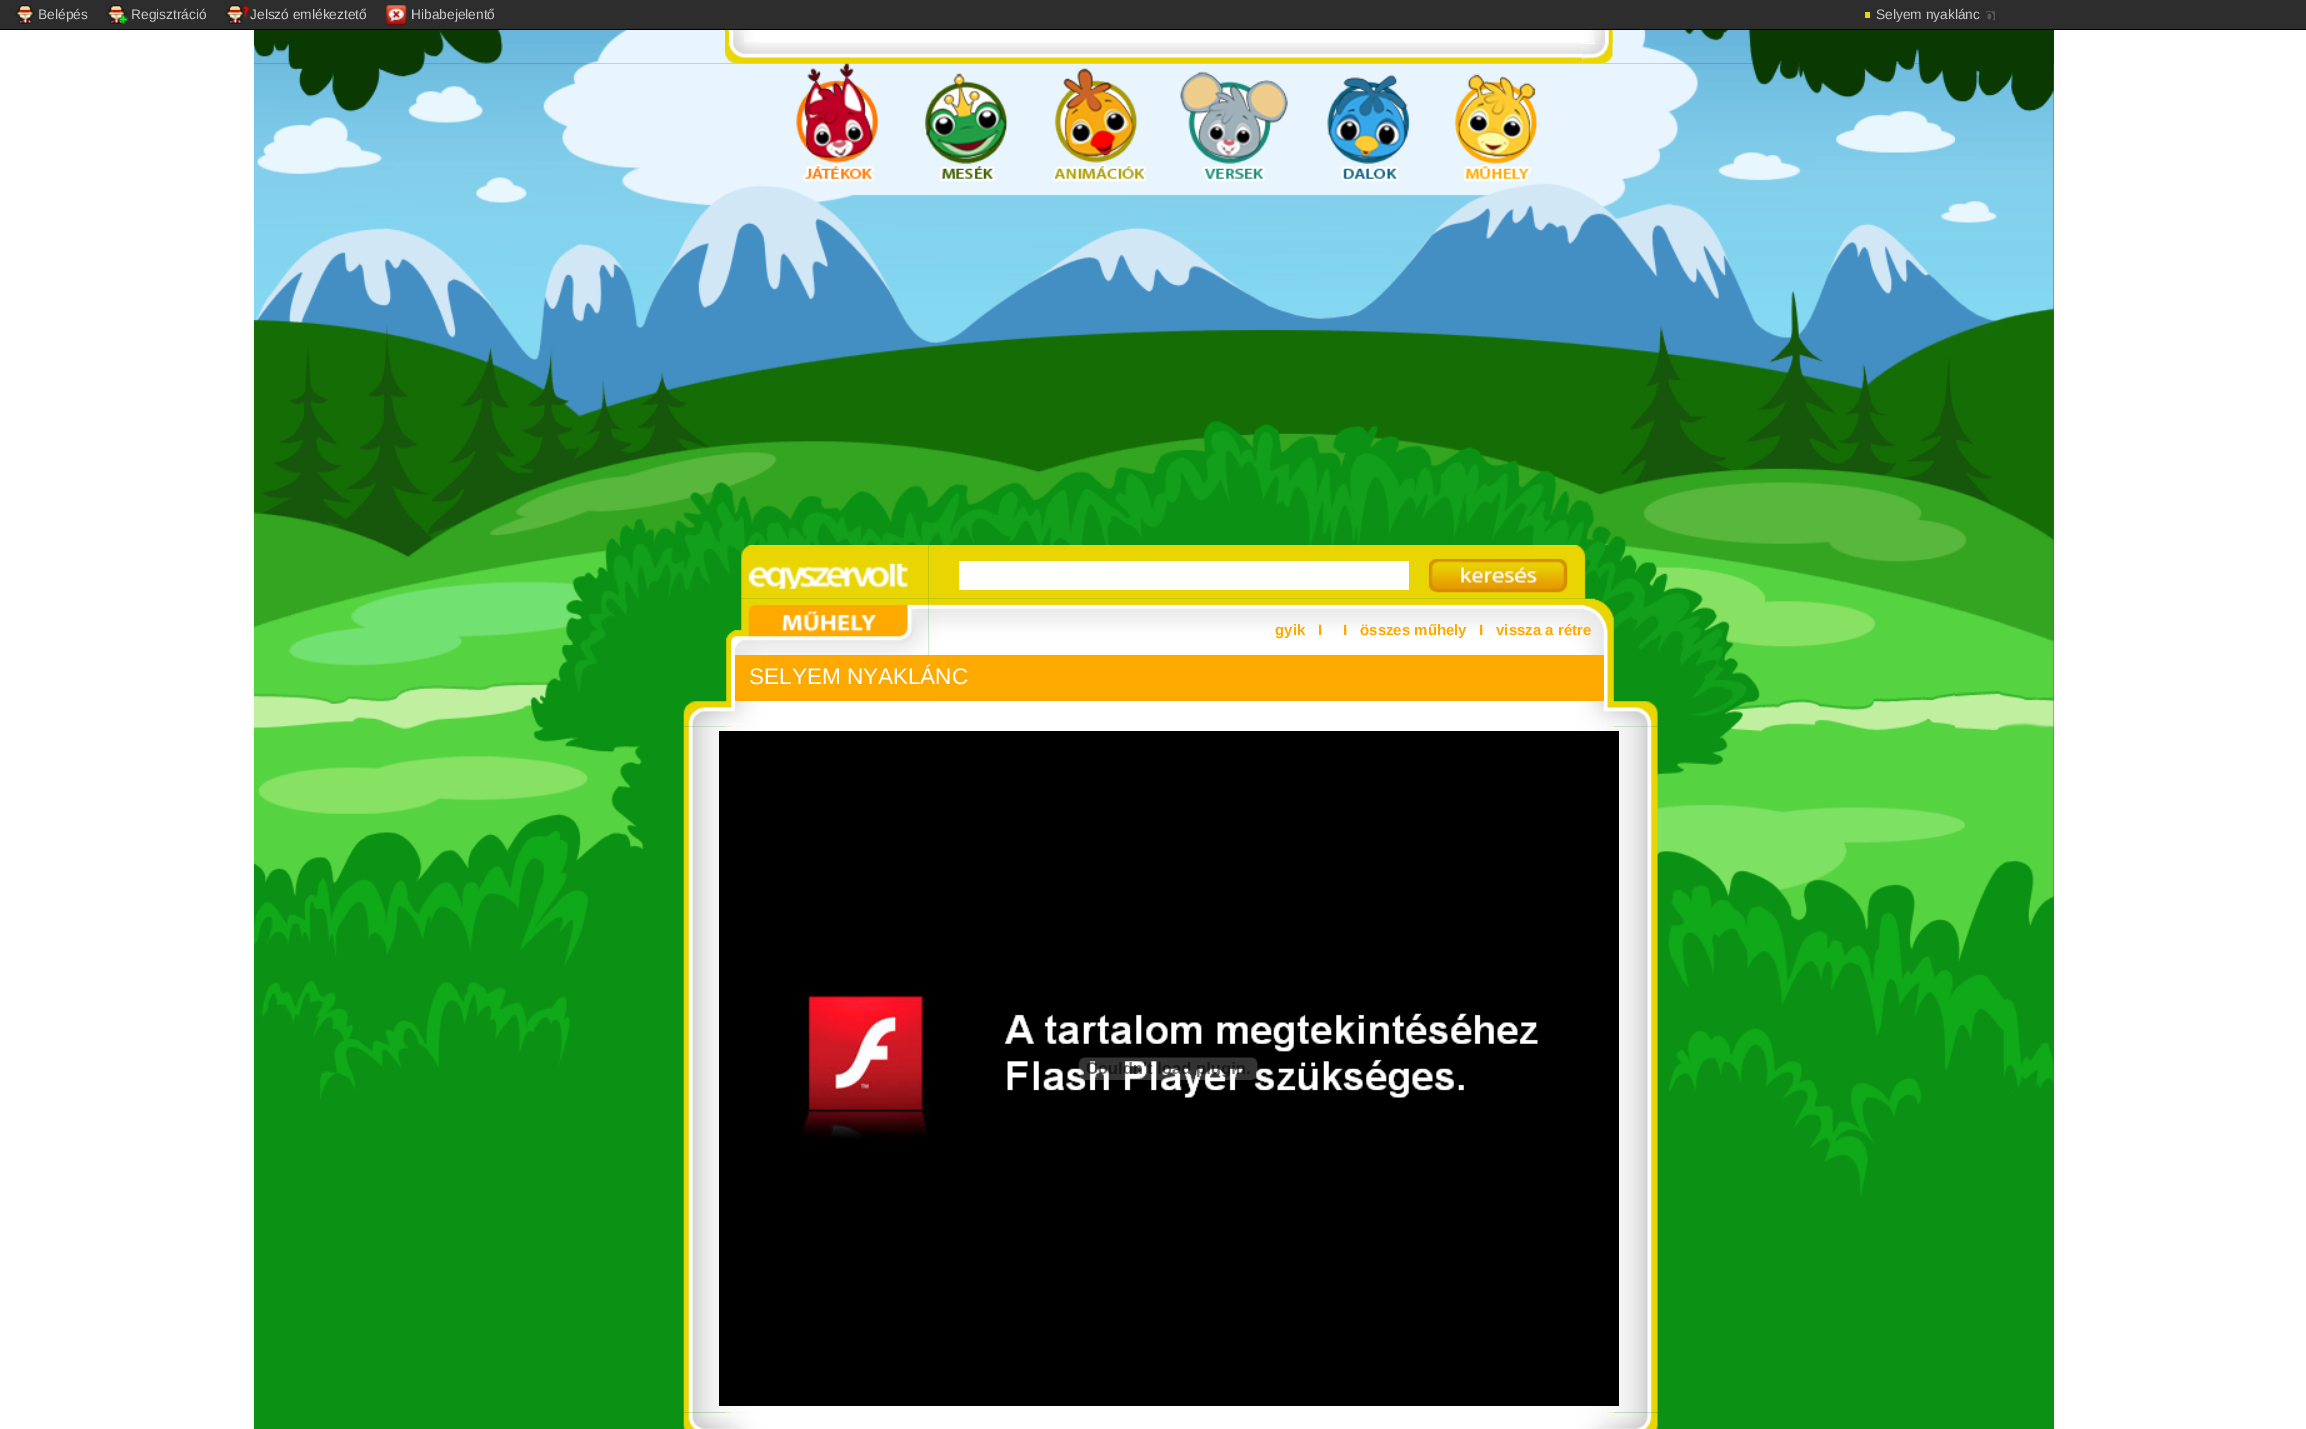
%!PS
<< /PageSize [2306 1429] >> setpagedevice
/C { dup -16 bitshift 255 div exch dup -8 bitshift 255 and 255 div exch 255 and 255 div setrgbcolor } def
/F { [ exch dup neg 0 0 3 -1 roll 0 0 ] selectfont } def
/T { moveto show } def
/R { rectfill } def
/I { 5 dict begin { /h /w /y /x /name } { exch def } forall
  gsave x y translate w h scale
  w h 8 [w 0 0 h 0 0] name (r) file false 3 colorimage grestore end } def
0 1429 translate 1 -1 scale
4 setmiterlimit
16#FFFFFF C
0 0 2306 1429 R
16#2D2D2D C
0 0 2306 29 R
16#000000 C
0 29 2306 1 R
(1.rgb) 15 5 20 19 I
/LiberationSans-Regular 13.75 F
16#CCCCCC C
(Belépés) 38 19 T
(2.rgb) 106 5 22 19 I
(Regisztráció) 131 19 T
(3.rgb) 225 5 24 19 I
(Jelszó emlékeztető) 250 19 T
(4.rgb) 386 5 21 20 I
(Hibabejelentő) 411 19 T
(Selyem nyaklánc) 1876 19 T
16#E8D501 C
1865 12 5 6 R
(5.rgb) 1986 11 9 9 I
16#0A3A02 C
254 30 1800 34 R
(6.rgb) 253 30 1668 34 I
(7.rgb) 725 30 30 13 I
16#FFFFFF C
755 30 828 13 R
(8.rgb) 1583 30 30 13 I
725 43 888 1 R
(14.rgb) 725 43 18 1 I
(15.rgb) 742 42 839 2 I
(9.rgb) 725 31 19 13 I
(10.rgb) 725 43 30 21 I
(11.rgb) 755 44 828 20 I
(16.rgb) 1595 42 18 2 I
(12.rgb) 1595 31 18 13 I
(13.rgb) 1582 43 31 21 I
16#0B9214 C
2053 64 1 1365 R
(17.rgb) 253 63 1801 1366 I
(18.rgb) 796 63 83 119 I
(19.rgb) 924 73 84 109 I
(20.rgb) 1052 68 95 114 I
(21.rgb) 1179 71 109 111 I
(22.rgb) 1327 74 83 108 I
(23.rgb) 1454 73 84 109 I
(24.rgb) 741 545 188 54 I
(25.rgb) 928 545 658 54 I
16#FFFFFF C
959 561 450 29 R
(26.rgb) 1428 558 140 35 I
(27.rgb) 726 598 203 57 I
(28.rgb) 928 598 686 57 I
/LiberationSans-Bold 15 F
16#FEA900 C
(gyik) 1275 635 T
(Ι) 1318 635 T
(Ι) 1343 635 T
(összes műhely) 1360 635 T
(Ι) 1479 635 T
(vissza a rétre) 1496 635 T
(29.rgb) 726 655 888 47 I
735 655 869 46 R
/LiberationSans-Regular 22.5 F
16#FFFFFF C
(SELYEM NYAKLÁNC) 749 684 T
(30.rgb) 726 701 888 712 I
(31.rgb) 683 701 975 26 I
(32.rgb) 683 726 975 687 I
16#000000 C
719 731 900 675 R
(33.rgb) 799 995 739 144 I
(34.rgb) 1078 1057 180 23 I
(35.rgb) 683 1412 975 17 I
showpage
